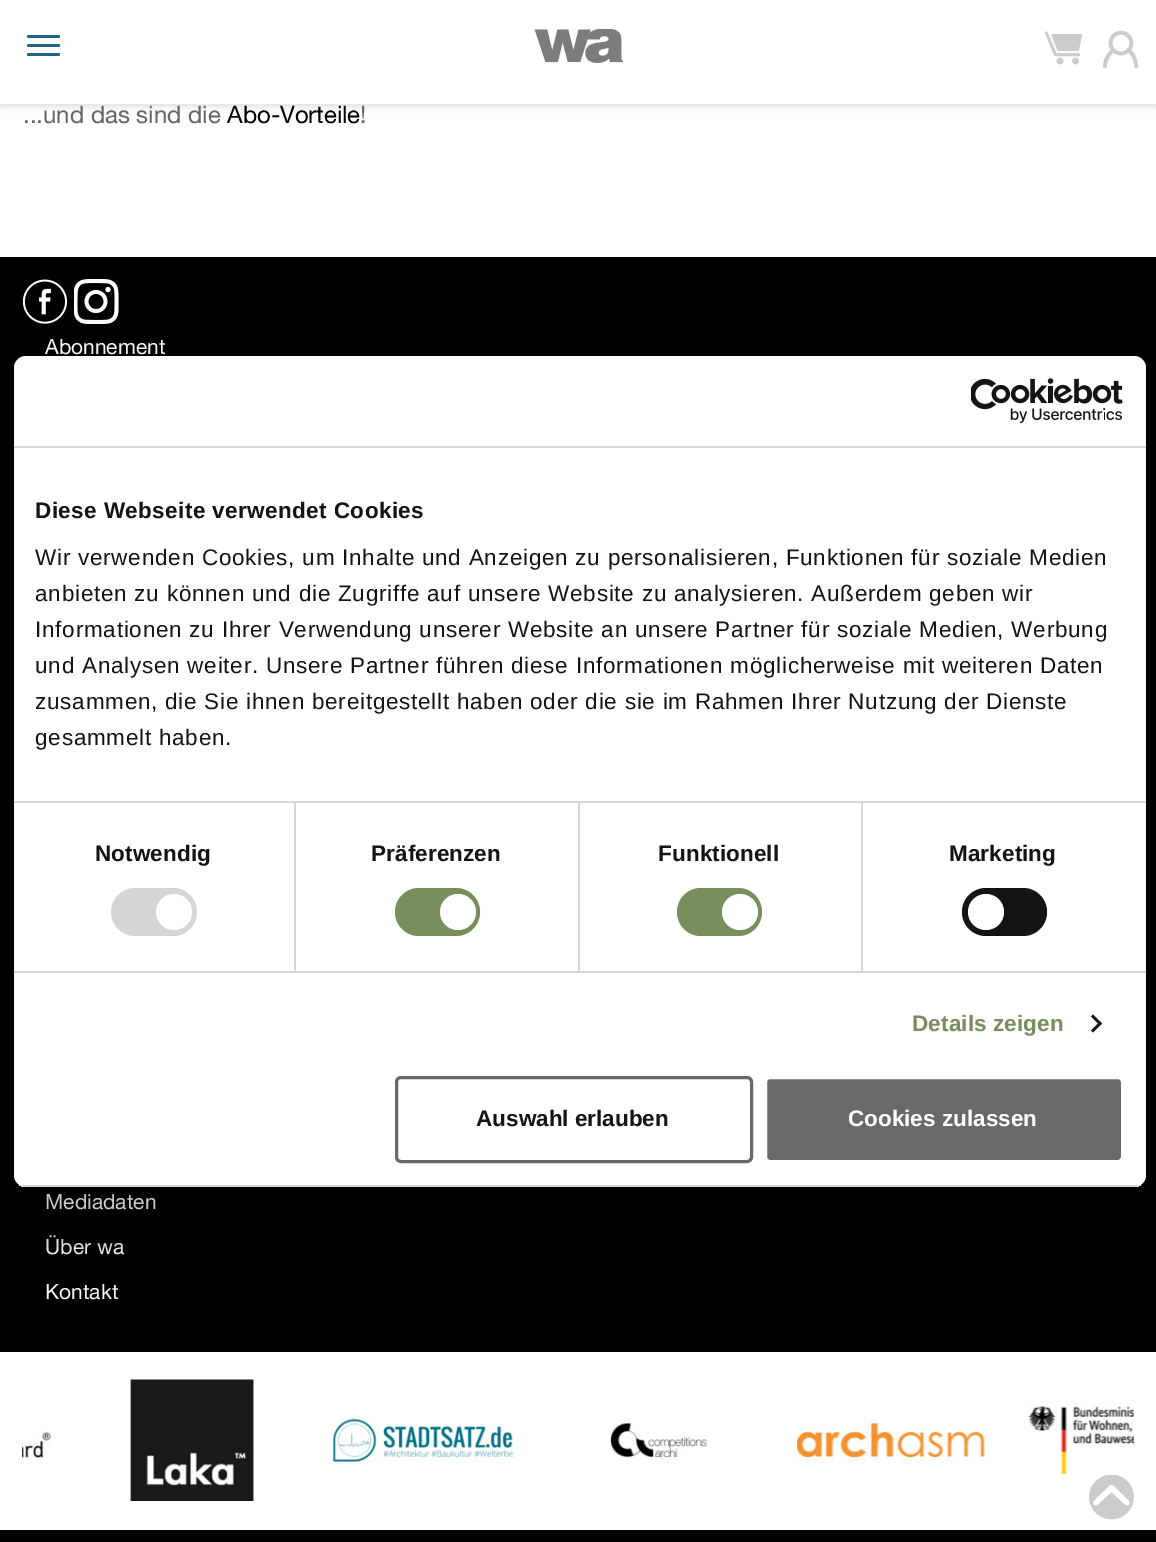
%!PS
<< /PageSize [1156 1542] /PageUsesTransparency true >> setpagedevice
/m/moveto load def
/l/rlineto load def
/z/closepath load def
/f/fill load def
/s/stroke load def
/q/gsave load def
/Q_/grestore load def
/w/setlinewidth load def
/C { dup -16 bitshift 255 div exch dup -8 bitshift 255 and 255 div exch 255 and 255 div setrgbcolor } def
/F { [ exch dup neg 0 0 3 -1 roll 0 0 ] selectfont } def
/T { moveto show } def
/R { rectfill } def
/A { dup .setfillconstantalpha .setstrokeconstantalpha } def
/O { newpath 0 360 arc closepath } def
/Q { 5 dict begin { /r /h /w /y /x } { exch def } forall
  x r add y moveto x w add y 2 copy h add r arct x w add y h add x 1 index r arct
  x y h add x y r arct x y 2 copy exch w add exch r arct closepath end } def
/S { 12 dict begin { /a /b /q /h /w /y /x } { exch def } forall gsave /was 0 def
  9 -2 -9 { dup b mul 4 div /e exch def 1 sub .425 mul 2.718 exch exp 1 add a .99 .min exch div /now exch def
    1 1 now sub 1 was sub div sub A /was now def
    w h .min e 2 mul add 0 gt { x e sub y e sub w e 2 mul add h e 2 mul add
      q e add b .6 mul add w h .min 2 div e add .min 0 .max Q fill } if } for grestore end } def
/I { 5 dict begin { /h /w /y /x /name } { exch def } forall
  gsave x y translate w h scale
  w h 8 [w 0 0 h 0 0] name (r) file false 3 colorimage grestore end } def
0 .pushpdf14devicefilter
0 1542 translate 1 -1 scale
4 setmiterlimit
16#FFFFFF C
0 0 1156 1542 R
16#000000 C
0 2 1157 103 0 4.5 .18 S
16#FFFFFF C
0 0 1156 104 R
16#206586 C
27 35 33 3 1.5 Q f
27 44 33 3 1.5 Q f
27 53 33 3 1.5 Q f
(1.rgb) 1044 31 39 34 I
(2.rgb) 1102 30 37 39 I
(3.rgb) 534 29 89 34 I
/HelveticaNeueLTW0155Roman-Regular 24 F
16#666666 C
(...und das sind die) 23 123 T
16#000000 C
(Abo-Vorteile) 227 123 T
16#666666 C
(!) 360 123 T
16#000000 C
0 257 1156 1285 R
(4.rgb) 23 279 45 45 I
(5.rgb) 74 279 45 45 I
/HelveticaNeueLTW0155Roman-Regular 21 F
16#FFFFFF C
(Abonnement) 45 354 T
(Mediadaten) 45 1209 T
(Über wa) 45 1254 T
(Kontakt) 45 1299 T
0 1352 1156 178 R
(6.rgb) 22 1431 29 29 I
(7.rgb) 130 1379 124 122 I
(8.rgb) 331 1417 188 45 I
(9.rgb) 609 1417 99 44 I
(10.rgb) 797 1417 188 45 I
(11.rgb) 1028 1402 106 75 I
(12.rgb) 1089 1475 45 45 I
16#000000 C
14 404 1132 831 12 51 .3 S
16#FFFFFF C
14 356 1132 831 12 Q f
16#D6D6D6 C
14 446 1132 2 R
(13.rgb) 971 378 152 45 I
14 801 1132 2 R
/LiberationSans-Bold 22.5 F
16#141414 C
35 518 m .4 0 (Diese Webseite verwendet Cookies) ashow
/LiberationSans-Regular 22.5 F
35 565 m .75 0 (Wir verwenden Cookies, um Inhalte und Anzeigen zu personalisieren, Funktionen für soziale Medien) ashow
35 601 m .75 0 (anbieten zu können und die Zugriffe auf unsere Website zu analysieren. Außerdem geben wir) ashow
35 637 m .75 0 (Informationen zu Ihrer Verwendung unserer Website an unsere Partner für soziale Medien, Werbung) ashow
35 673 m .75 0 (und Analysen weiter. Unsere Partner führen diese Informationen möglicherweise mit weiteren Daten) ashow
35 709 m .75 0 (zusammen, die Sie ihnen bereitgestellt haben oder die sie im Rahmen Ihrer Nutzung der Dienste) ashow
35 745 m .75 0 (gesammelt haben.) ashow
16#D6D6D6 C
14 971 1132 2 R
294 803 2 168 R
/LiberationSans-Bold 22.5 F
16#141414 C
95 861 m .1 0 (Notwendig) ashow
16#D6D6D6 C
111 888 86 48 24 Q f
16#FFFFFF C
174 912 18 O f
16#D6D6D6 C
578 803 2 168 R
16#141414 C
371 861 m .1 0 (Präferenzen) ashow
16#788F5D C
395 888 85 48 24 Q f
16#FFFFFF C
458 912 18 O f
16#D6D6D6 C
861 803 2 168 R
16#141414 C
658 861 m .1 0 (Funktionell) ashow
16#788F5D C
677 888 85 48 24 Q f
16#FFFFFF C
740 912 18 O f
16#141414 C
949 861 m .1 0 (Marketing) ashow
962 888 85 48 24 Q f
16#FFFFFF C
986 912 18 O f
16#788F5D C
912 1031 m .1 0 (Details zeigen) ashow
16#141414 C
1093 1014.5 m 9 9 l -2 2 l -9 -9 l z f
1100 1021.5 m 2 2 l -9 9 l -2 -2 l z f
q
14 356 1132 831 12 Q clip newpath
16#D6D6D6 C
14 1185 1132 2 R
Q_
16#696969 C
3 w
396.5 1077.5 355 84 4.5 Q s
16#141414 C
(Auswahl erlauben) 476 1126 T
16#696969 C
765.5 1077.5 357 84 4.5 Q q f Q_
16#FFFFFF C
s
(Cookies zulassen) 848 1126 T
.poppdf14devicefilter showpage
